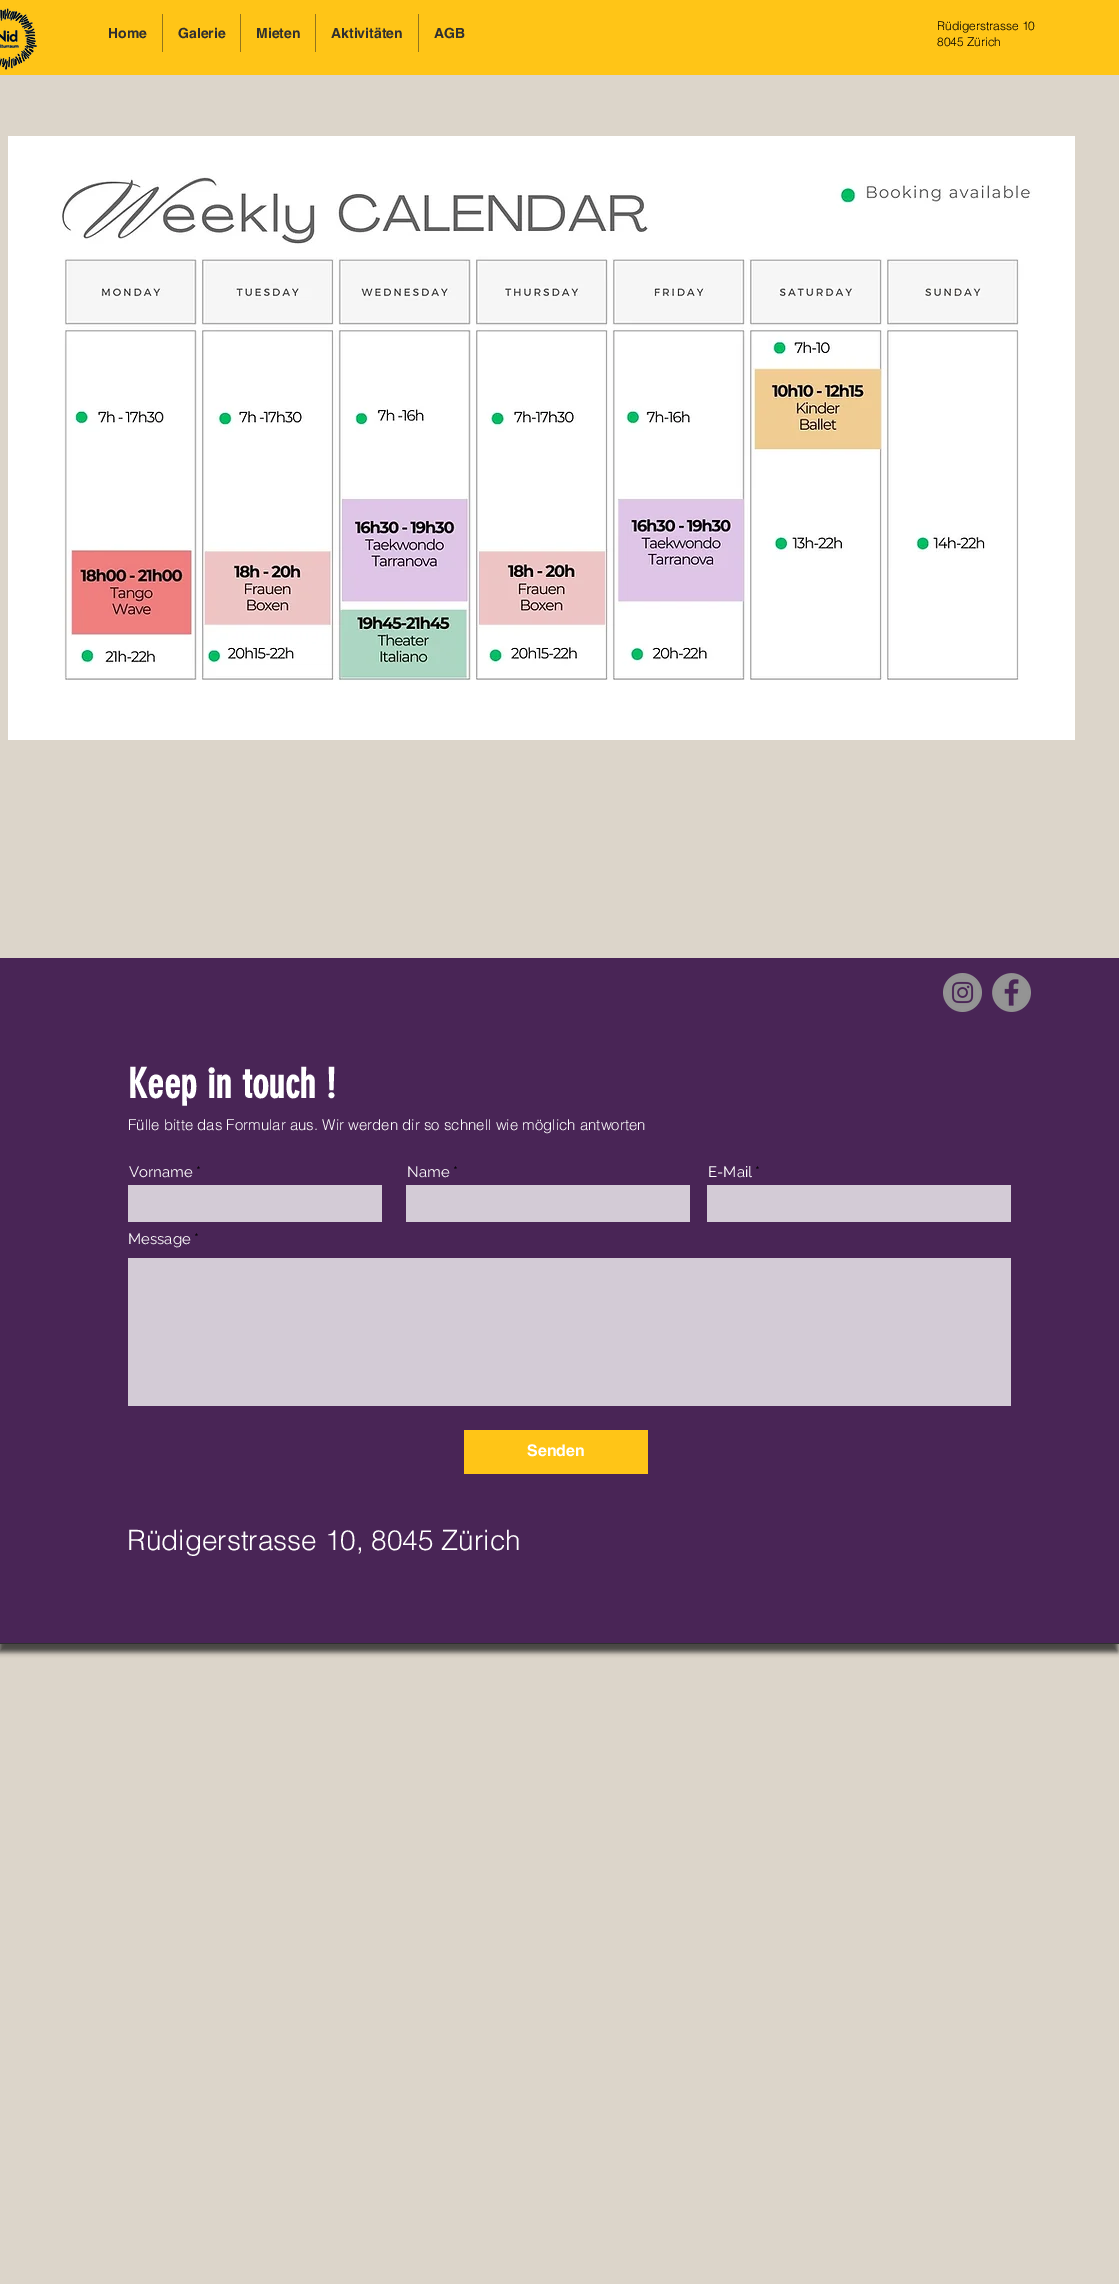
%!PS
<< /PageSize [1119 2284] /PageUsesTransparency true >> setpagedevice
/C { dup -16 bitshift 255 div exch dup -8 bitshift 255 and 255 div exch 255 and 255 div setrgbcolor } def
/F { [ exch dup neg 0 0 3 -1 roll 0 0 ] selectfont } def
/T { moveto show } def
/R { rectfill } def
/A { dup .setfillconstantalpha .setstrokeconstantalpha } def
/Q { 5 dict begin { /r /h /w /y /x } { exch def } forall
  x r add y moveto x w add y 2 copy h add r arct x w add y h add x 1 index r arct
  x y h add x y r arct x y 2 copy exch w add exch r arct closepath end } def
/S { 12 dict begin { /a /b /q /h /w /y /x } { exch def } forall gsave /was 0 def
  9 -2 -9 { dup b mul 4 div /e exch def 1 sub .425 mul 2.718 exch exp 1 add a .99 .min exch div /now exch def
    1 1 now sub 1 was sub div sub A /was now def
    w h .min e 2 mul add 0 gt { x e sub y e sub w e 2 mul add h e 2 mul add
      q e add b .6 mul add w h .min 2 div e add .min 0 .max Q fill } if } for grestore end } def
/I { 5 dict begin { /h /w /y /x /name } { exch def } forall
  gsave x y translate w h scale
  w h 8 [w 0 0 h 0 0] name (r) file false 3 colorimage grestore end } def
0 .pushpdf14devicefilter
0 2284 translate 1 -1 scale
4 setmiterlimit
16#DCD5CA C
0 0 1119 2284 R
16#FFC517 C
0 0 1119 75 R
(1.rgb) 0 7 37 63 I
/helvetica-Bold 14 F
16#2F2F30 C
(Home) 108 38 T
16#94761C C
162 14 1 38 R
16#2F2F30 C
(Galerie) 178 38 T
16#94761C C
240 14 1 38 R
16#2F2F30 C
(Mieten) 256 38 T
16#94761C C
315 14 1 38 R
16#2F2F30 C
(Aktivitäten) 331 38 T
16#94761C C
418 14 1 38 R
16#2F2F30 C
(AGB) 434 38 T
/helvetica-Light 12 F
16#000000 C
(Rüdigerstrasse 10) 937 30 T
(8045 Zürich) 937 46 T
(2.rgb) 8 136 1067 604 I
-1 966 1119 686 0 2.5 .67 S
16#2F2F30 C
0 1643 1119 1 R
16#492556 C
0 958 1119 685 R
(3.rgb) 943 973 39 39 I
(4.rgb) 992 973 39 39 I
/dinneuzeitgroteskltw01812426-Bold 41 F
16#FFFFFF C
(Keep in touch !) 128 1098 T
/helvetica-Light 15 F
(Fülle bitte das Formular aus. Wir werden dir so schnell wie möglich antworten) 128 1130 T
/Raleway-Regular 15 F
(Vorname) 129 1177 T
16#000000 C
(*) 196 1177 T
16#D3CBD6 C
128 1185 254 37 R
16#FFFFFF C
(Name) 407 1177 T
16#000000 C
(*) 453 1177 T
16#D3CBD6 C
406 1185 284 37 R
16#FFFFFF C
(E-Mail) 708 1177 T
16#000000 C
(*) 755 1177 T
16#D3CBD6 C
707 1185 304 37 R
16#FFFFFF C
(Message) 128 1244 T
16#000000 C
(*) 194 1244 T
16#D3CBD6 C
128 1258 883 148 R
16#FFC517 C
464 1430 184 44 R
/helvetica-Bold 16 F
16#FFFFFF C
(Senden) 527 1456 T
/helvetica-Light 28 F
(Rüdigerstrasse 10, 8045 Zürich) 127 1550 T
.poppdf14devicefilter showpage
